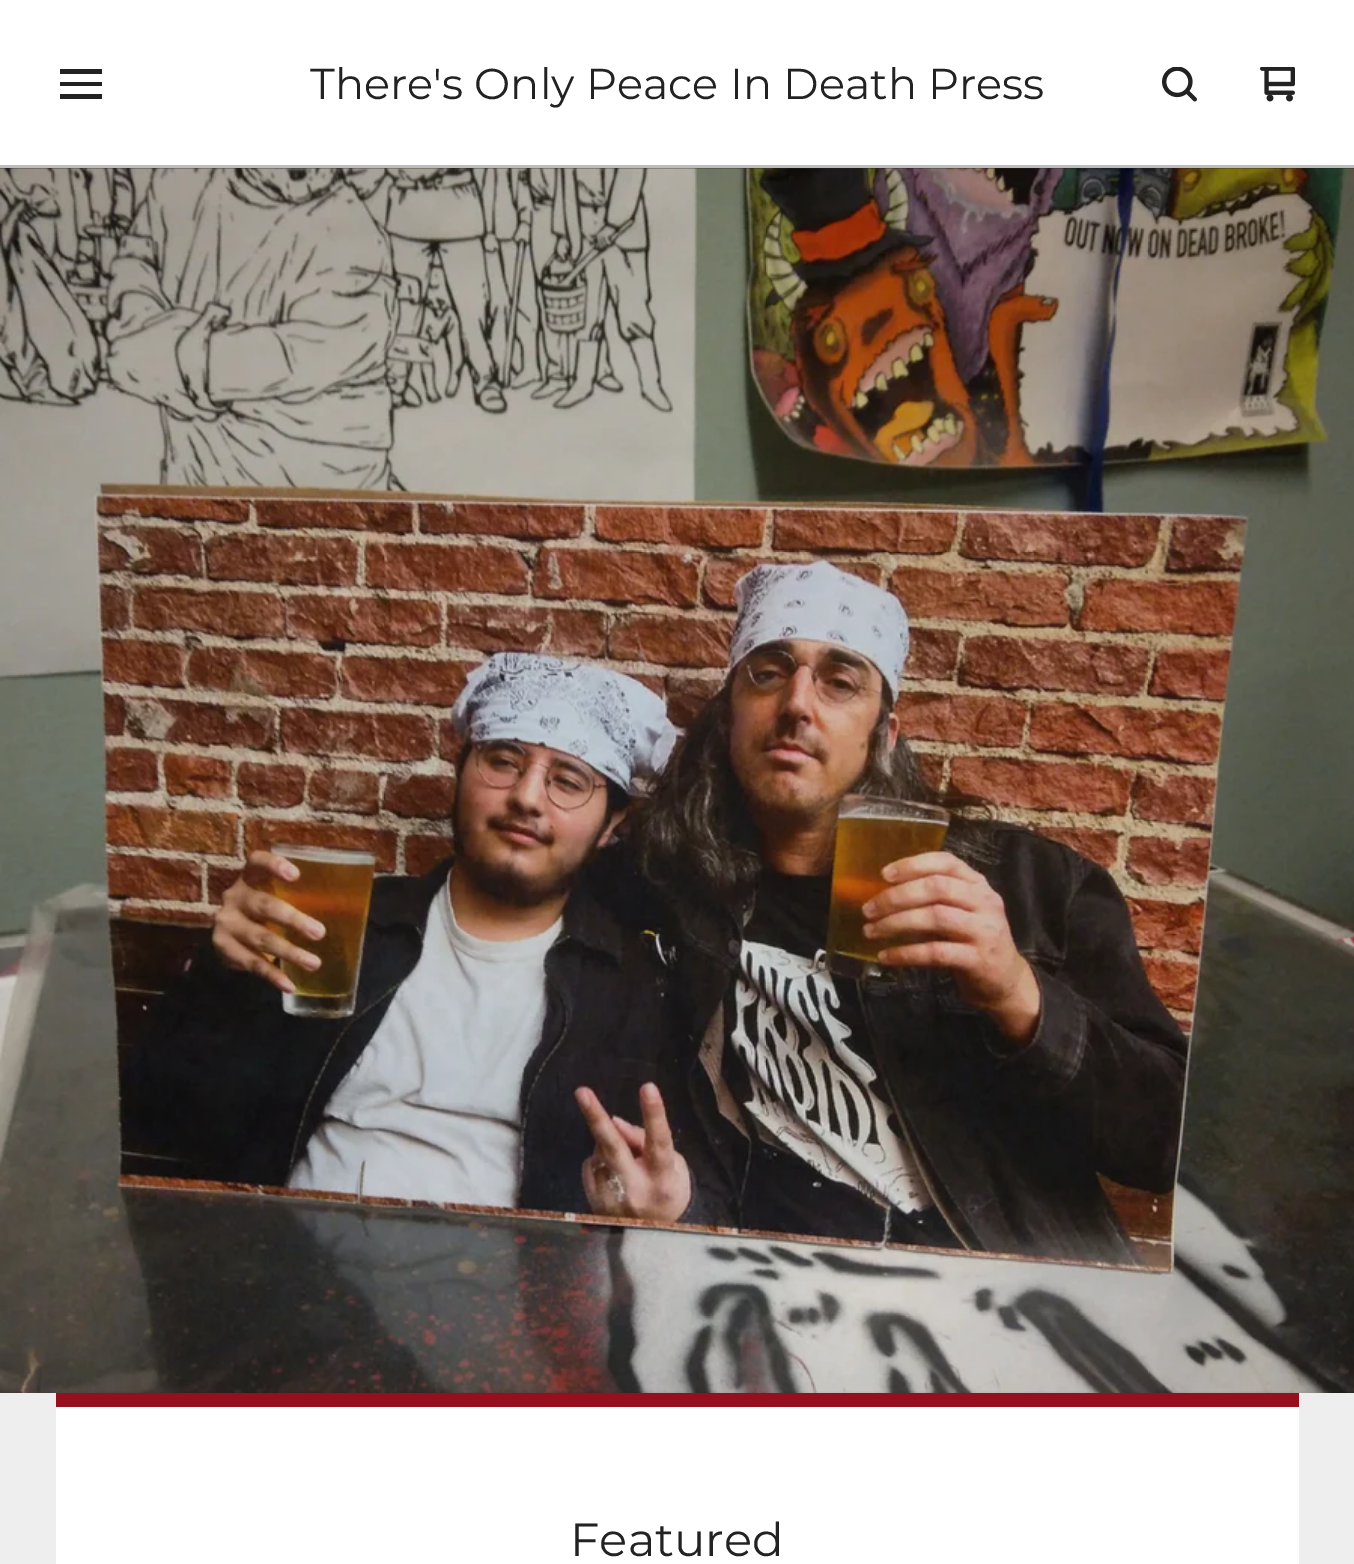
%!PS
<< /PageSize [1354 1564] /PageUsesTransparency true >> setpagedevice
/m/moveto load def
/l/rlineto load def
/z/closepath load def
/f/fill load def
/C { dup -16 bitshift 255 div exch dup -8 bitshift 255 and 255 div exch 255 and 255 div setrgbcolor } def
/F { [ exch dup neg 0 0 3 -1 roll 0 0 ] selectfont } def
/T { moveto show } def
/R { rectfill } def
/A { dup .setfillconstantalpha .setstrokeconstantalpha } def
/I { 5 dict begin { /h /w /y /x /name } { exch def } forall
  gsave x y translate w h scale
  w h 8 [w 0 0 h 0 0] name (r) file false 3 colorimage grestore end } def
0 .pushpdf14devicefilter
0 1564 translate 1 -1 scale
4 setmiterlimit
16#EEEEEE C
0 0 1354 1564 R
16#FFFFFF C
0 0 1354 168 R
(3.rgb) 10 1391 1329 2 I
(4.rgb) 0 168 1354 1225 I
0.3 A
16#222222 C
0 165 1354 4 R
1 A
60 69 m 0 5 l 42 0 l 0 -5 l z 60 82 m 0 4 l 42 0 l 0 -4 l z 60 94 m 0 5 l 42 0 l 0 -5 l z f
/Montserrat-Regular 43.1 F
(There's Only Peace In Death Press) 310 99 T
(1.rgb) 1162 67 35 35 I
(2.rgb) 1260 67 35 35 I
16#950F1E C
56 1393 1243 14 R
16#FFFFFF C
56 1407 1243 157 R
/Montserrat-Regular 46.5 F
16#222222 C
(Featured) 570 1556 T
.poppdf14devicefilter showpage
